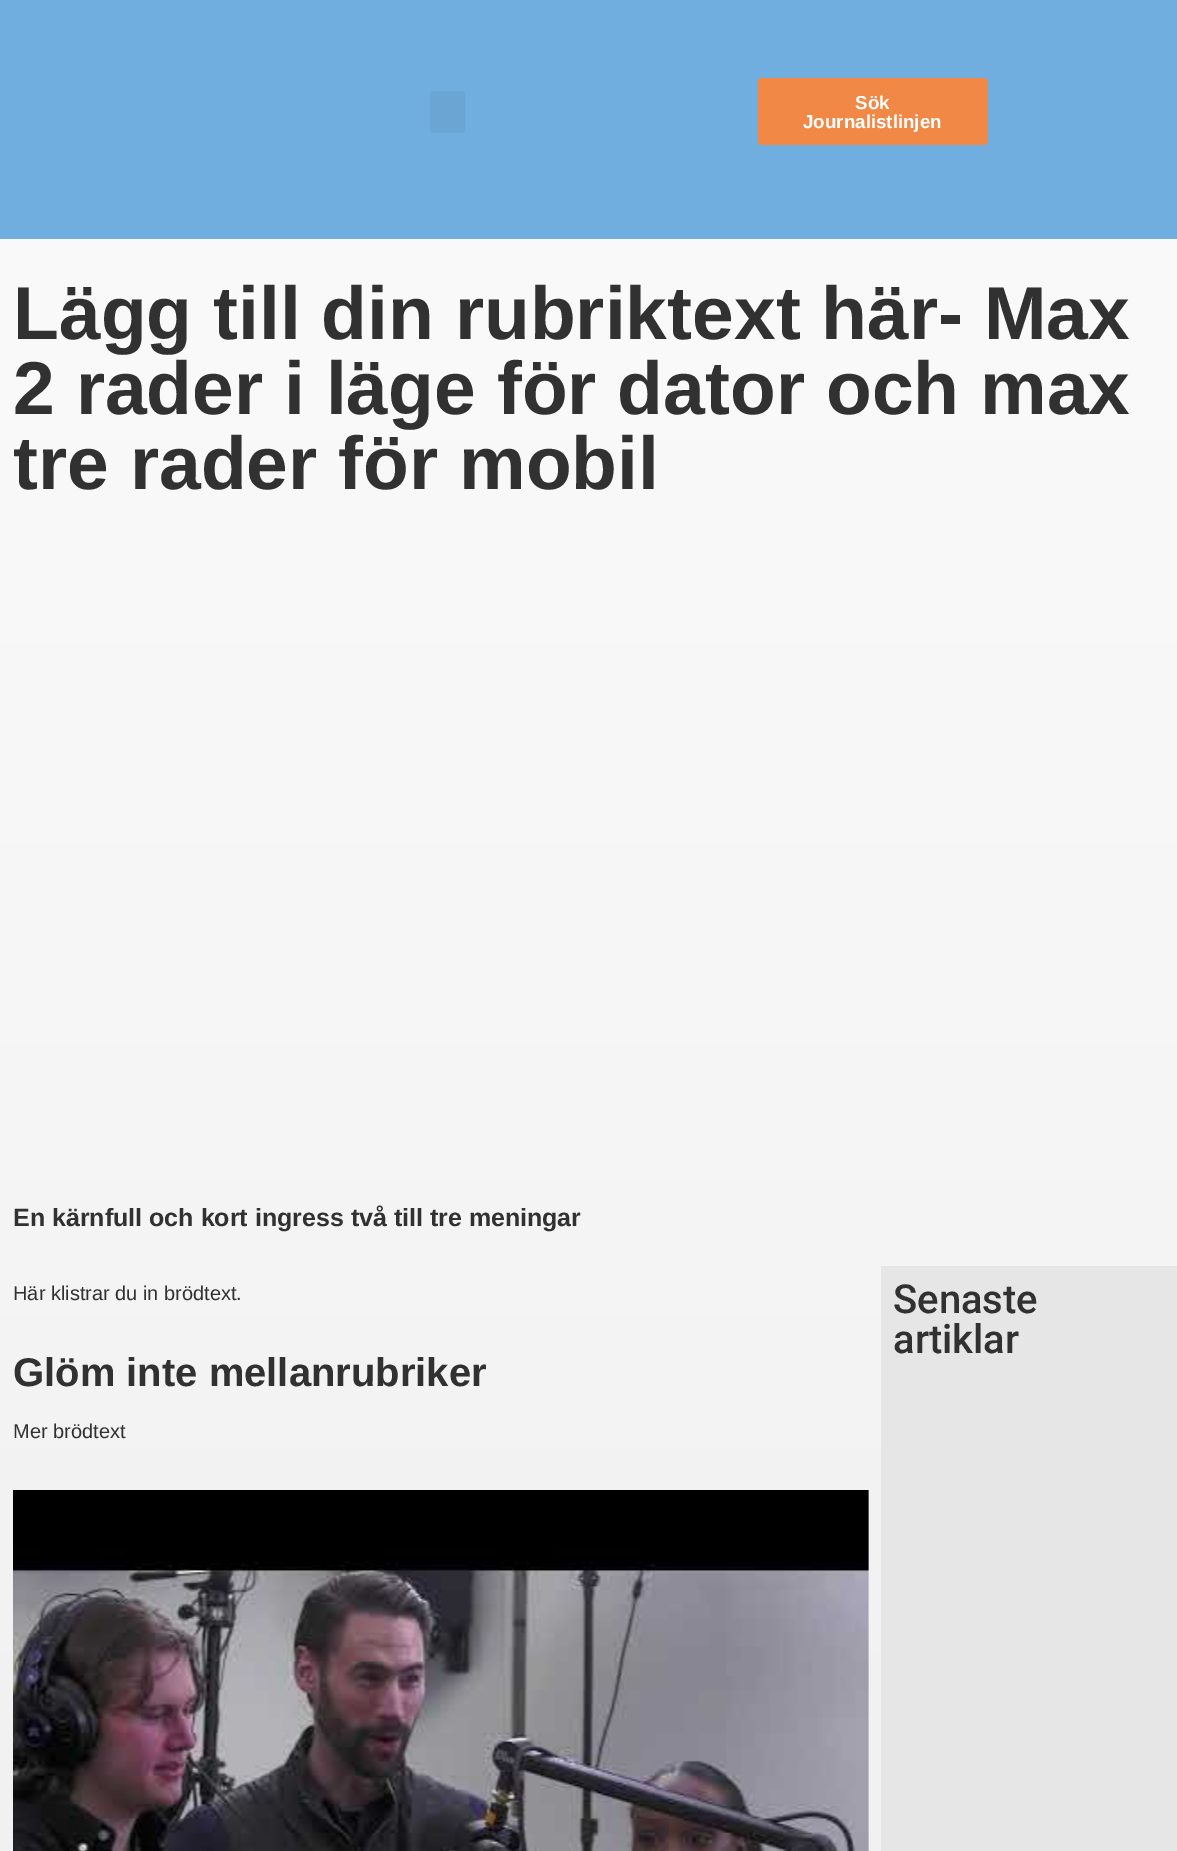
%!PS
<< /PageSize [1177 1851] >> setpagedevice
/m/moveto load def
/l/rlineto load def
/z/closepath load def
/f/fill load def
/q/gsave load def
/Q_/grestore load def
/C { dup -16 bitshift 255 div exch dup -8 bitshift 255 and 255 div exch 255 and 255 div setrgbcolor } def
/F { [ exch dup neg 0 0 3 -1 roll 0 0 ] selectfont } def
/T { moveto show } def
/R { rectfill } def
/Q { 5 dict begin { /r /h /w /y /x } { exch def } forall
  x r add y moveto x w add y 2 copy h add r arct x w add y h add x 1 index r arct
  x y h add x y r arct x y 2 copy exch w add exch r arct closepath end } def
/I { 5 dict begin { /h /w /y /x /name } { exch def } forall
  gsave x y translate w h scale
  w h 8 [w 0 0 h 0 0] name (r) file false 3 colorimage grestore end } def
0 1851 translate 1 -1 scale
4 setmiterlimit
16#FFFFFF C
0 0 1177 1851 R
q 0 239 m 1177 0 l 0 1612 l -1177 0 l z clip newpath
<< /ShadingType 2 /ColorSpace /DeviceRGB /Coords [589 0 589 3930] /Extend [true true] /Function << /FunctionType 2 /Domain [0 1] /C0 [.988 .988 .988] /C1 [.894 .894 .894] /N 1 >> >> shfill Q_
16#70AEDF C
0 0 1177 239 R
16#6AA5D4 C
430 91 35 42 4 Q f
16#F18846 C
758 78 230 67 4 Q f
/LiberationSans-Bold 18.75 F
16#FFFFFF C
(Sök) 855 109 T
(Journalistlinjen) 803 128 T
/LiberationSans-Bold 75 F
16#313131 C
(Lägg till din rubriktext här- Max) 13 339 T
(2 rader i läge för dator och max) 13 414 T
(tre rader för mobil) 13 489 T
/LiberationSans-Bold 25 F
(En kärnfull och kort ingress två till tre meningar) 13 1226 T
/LiberationSans-Regular 20 F
(Här klistrar du in brödtext.) 13 1300 T
/LiberationSans-Bold 40 F
(Glöm inte mellanrubriker) 13 1386 T
/LiberationSans-Regular 20 F
(Mer brödtext) 13 1438 T
(1.rgb) 13 1490 856 361 I
16#E6E6E6 C
881 1266 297 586 1 Q f
/Roboto-Medium 40 F
16#313131 C
(Senaste) 893 1313 T
(artiklar) 893 1353 T
showpage
